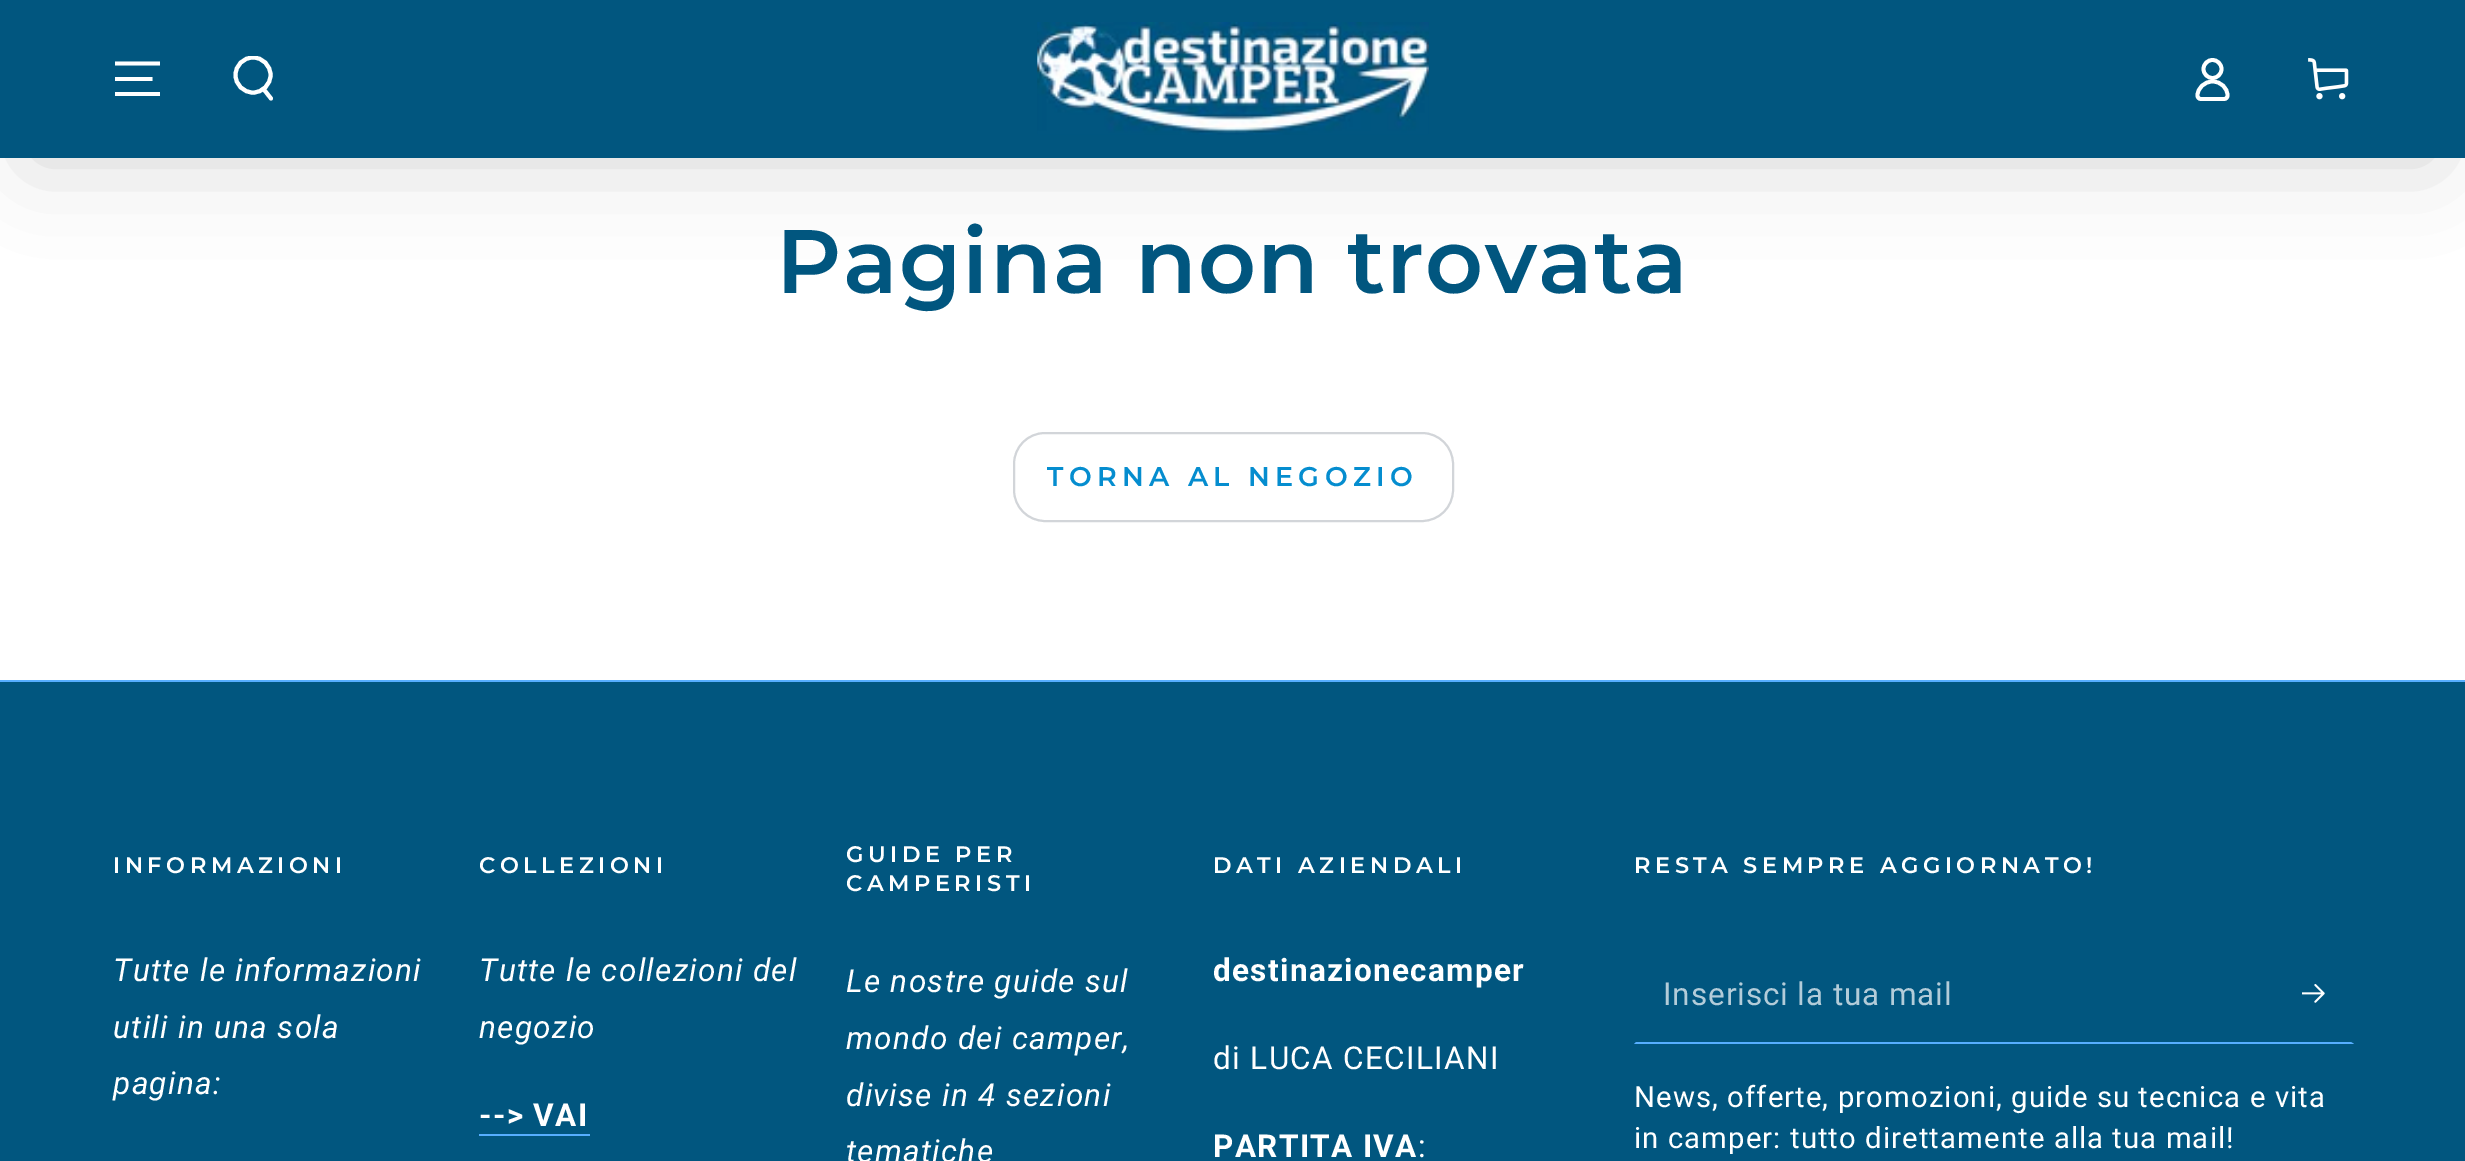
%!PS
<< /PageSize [2465 1161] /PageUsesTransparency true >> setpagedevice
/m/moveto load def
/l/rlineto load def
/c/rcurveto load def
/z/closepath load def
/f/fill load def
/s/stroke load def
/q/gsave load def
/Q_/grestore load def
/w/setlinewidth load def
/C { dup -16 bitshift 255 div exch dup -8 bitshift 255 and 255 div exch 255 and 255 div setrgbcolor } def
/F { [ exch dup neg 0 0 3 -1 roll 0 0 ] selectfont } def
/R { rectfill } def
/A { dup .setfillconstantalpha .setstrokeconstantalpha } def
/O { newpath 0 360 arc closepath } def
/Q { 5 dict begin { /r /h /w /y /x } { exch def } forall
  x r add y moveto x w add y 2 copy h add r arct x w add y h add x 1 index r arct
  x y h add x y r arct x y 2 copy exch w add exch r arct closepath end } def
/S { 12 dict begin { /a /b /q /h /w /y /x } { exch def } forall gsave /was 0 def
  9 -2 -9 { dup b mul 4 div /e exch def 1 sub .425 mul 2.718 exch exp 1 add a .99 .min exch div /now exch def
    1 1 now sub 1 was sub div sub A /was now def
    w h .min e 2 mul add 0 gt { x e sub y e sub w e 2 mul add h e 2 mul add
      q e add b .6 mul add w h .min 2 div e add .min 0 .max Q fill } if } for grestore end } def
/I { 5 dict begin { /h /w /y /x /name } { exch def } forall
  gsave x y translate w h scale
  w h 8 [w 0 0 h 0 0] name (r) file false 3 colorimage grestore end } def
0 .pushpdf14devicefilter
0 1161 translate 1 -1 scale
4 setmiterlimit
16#FFFFFF C
0 0 2465 1161 R
16#212326 C
34 113 2398 45 22.5 45 .2 S
16#01567F C
0 0 2465 158 R
16#FFFFFF C
3.7 w
115 94 m 45 0 l 115 79 m 37.5 0 l 115 63.5 m 45 0 l s
q
232 56 45 45 rectclip
4 w
253 75 17.5 O s
Q_
4 w
1 setlinecap
263.5 89 m 7.5 9.5 l s
(1.rgb) 1037 22 392 113 I
3.8 w
0 setlinecap
2212.5 81.5 m -8 0 -15 6.5 -15 14 c 0 2 1.5 3.5 3.5 3.5 c 23 0 l 2 0 3.5 -1.5 3.5 -3.5 c 0 -7.5 -6.5 -14 -15 -14 c z s
2212.5 69 9 O s
(2.rgb) 2308 58 41 42 I
/Montserrat-SemiBold 90 F
16#01567F C
776 293 m 1.35 0 (Pagina non trovata) ashow
16#D2D5D9 C
2 w
1014 433 439 88 31 Q s
/Montserrat-SemiBold 27 F
16#058DCF C
1047 486 m 5.4 0 (TORNA AL NEGOZIO) ashow
16#01567F C
0 682 2465 479 R
16#56AEFF C
0 680 2465 2 R
/Montserrat-SemiBold 22.5 F
16#FFFFFF C
113 873 m 4.5 0 (INFORMAZIONI) ashow
/Roboto-Italic 31.5 F
113 981 m 1.35 0 (Tutte le informazioni) ashow
113 1038 m 1.35 0 (utili in una sola) ashow
113 1094 m 1.35 0 (pagina:) ashow
/Montserrat-SemiBold 22.5 F
479 873 m 4.5 0 (COLLEZIONI) ashow
/Roboto-Italic 31.5 F
479 981 m 1.35 0 (Tutte le collezioni del) ashow
479 1038 m 1.35 0 (negozio) ashow
/Roboto-Bold 31.5 F
479 1126 m 1.35 0 (--> VAI) ashow
16#56AEFF C
479 1134 111 2 R
/Montserrat-SemiBold 22.5 F
16#FFFFFF C
846 862 m 4.5 0 (GUIDE PER) ashow
846 891 m 4.5 0 (CAMPERISTI) ashow
/Roboto-Italic 31.5 F
846 992 m 1.35 0 (Le nostre guide sul) ashow
846 1049 m 1.35 0 (mondo dei camper,) ashow
846 1106 m 1.35 0 (divise in 4 sezioni) ashow
846 1162 m 1.35 0 (tematiche) ashow
/Montserrat-SemiBold 22.5 F
1213 873 m 4.5 0 (DATI AZIENDALI) ashow
/Roboto-Bold 31.5 F
1213 981 m 1.35 0 (destinazionecamper) ashow
/Roboto-Regular 31.5 F
1213 1069 m 1.35 0 (di LUCA CECILIANI) ashow
/Roboto-Bold 31.5 F
1213 1157 m 1.35 0 (PARTITA IVA) ashow
/Roboto-Regular 31.5 F
1418 1157 m 1.35 0 (:) ashow
/Montserrat-SemiBold 22.5 F
1634 873 m 4.5 0 (RESTA SEMPRE AGGIORNATO!) ashow
16#56AEFF C
2354 1044 m -720 0 l 2 -2 l 715 0 l z f
/Roboto-Regular 31.5 F
16#B3CCD9 C
1663 1005 m .9 0 (Inserisci la tua mail) ashow
(3.rgb) 2302 984 23 19 I
/Roboto-Regular 29.25 F
16#FFFFFF C
1634 1107 m 1.12 0 (News, offerte, promozioni, guide su tecnica e vita) ashow
1634 1148 m 1.12 0 (in camper: tutto direttamente alla tua mail!) ashow
.poppdf14devicefilter showpage
